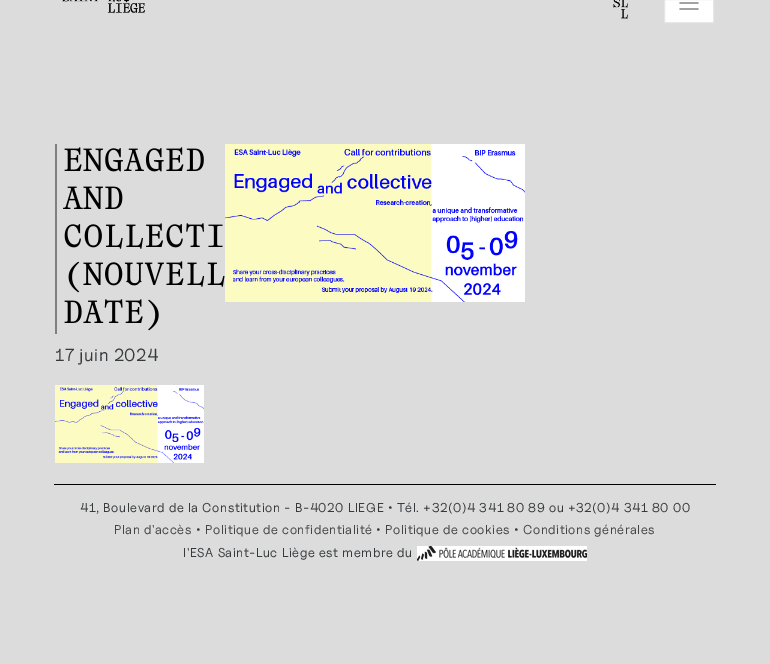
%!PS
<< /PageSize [770 664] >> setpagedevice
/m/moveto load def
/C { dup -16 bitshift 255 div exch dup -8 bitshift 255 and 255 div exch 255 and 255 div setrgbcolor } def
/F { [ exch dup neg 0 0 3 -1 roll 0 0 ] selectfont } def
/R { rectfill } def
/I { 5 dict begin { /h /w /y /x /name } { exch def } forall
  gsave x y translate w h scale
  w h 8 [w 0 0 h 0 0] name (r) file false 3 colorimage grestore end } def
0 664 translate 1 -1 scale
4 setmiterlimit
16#DCDCDC C
0 0 770 664 R
(1.rgb) 62 0 83 14 I
(2.rgb) 613 0 15 19 I
16#FFFFFF C
665 0 48 22 R
(3.rgb) 679 2 20 8 I
16#E6E6E6 C
664.5 -.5 49 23 rectstroke
(4.rgb) 225 144 300 158 I
16#808080 C
55 144 2 190 R
(5.rgb) 64 147 140 25 I
(6.rgb) 63 186 60 23 I
(7.rgb) 64 223 159 26 I
(8.rgb) 68 261 157 32 I
(9.rgb) 64 299 95 32 I
/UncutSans-Regular 17.5 F
16#373A3C C
55 361 m .53 0 (17 juin 2024) ashow
(10.rgb) 55 385 149 78 I
16#000000 C
54 484 662 1 R
/UncutSans-Regular 12.8 F
16#373A3C C
80 512 m .53 0 (41, Boulevard de la Constitution - B-4020 LIEGE • Tél. +32\(0\)4 341 80 89 ou +32\(0\)4 341 80 00) ashow
16#444444 C
114 534 m .53 0 (Plan d'accès) ashow
16#373A3C C
196 534 m .53 0 (•) ashow
16#444444 C
205 534 m .53 0 (Politique de confidentialité) ashow
16#373A3C C
376 534 m .53 0 (•) ashow
16#444444 C
385 534 m .53 0 (Politique de cookies) ashow
16#373A3C C
514 534 m .53 0 (•) ashow
16#444444 C
523 534 m .53 0 (Conditions générales) ashow
16#373A3C C
183 557 m .53 0 (l'ESA Saint-Luc Liège est membre du) ashow
(11.rgb) 417 546 170 15 I
showpage
